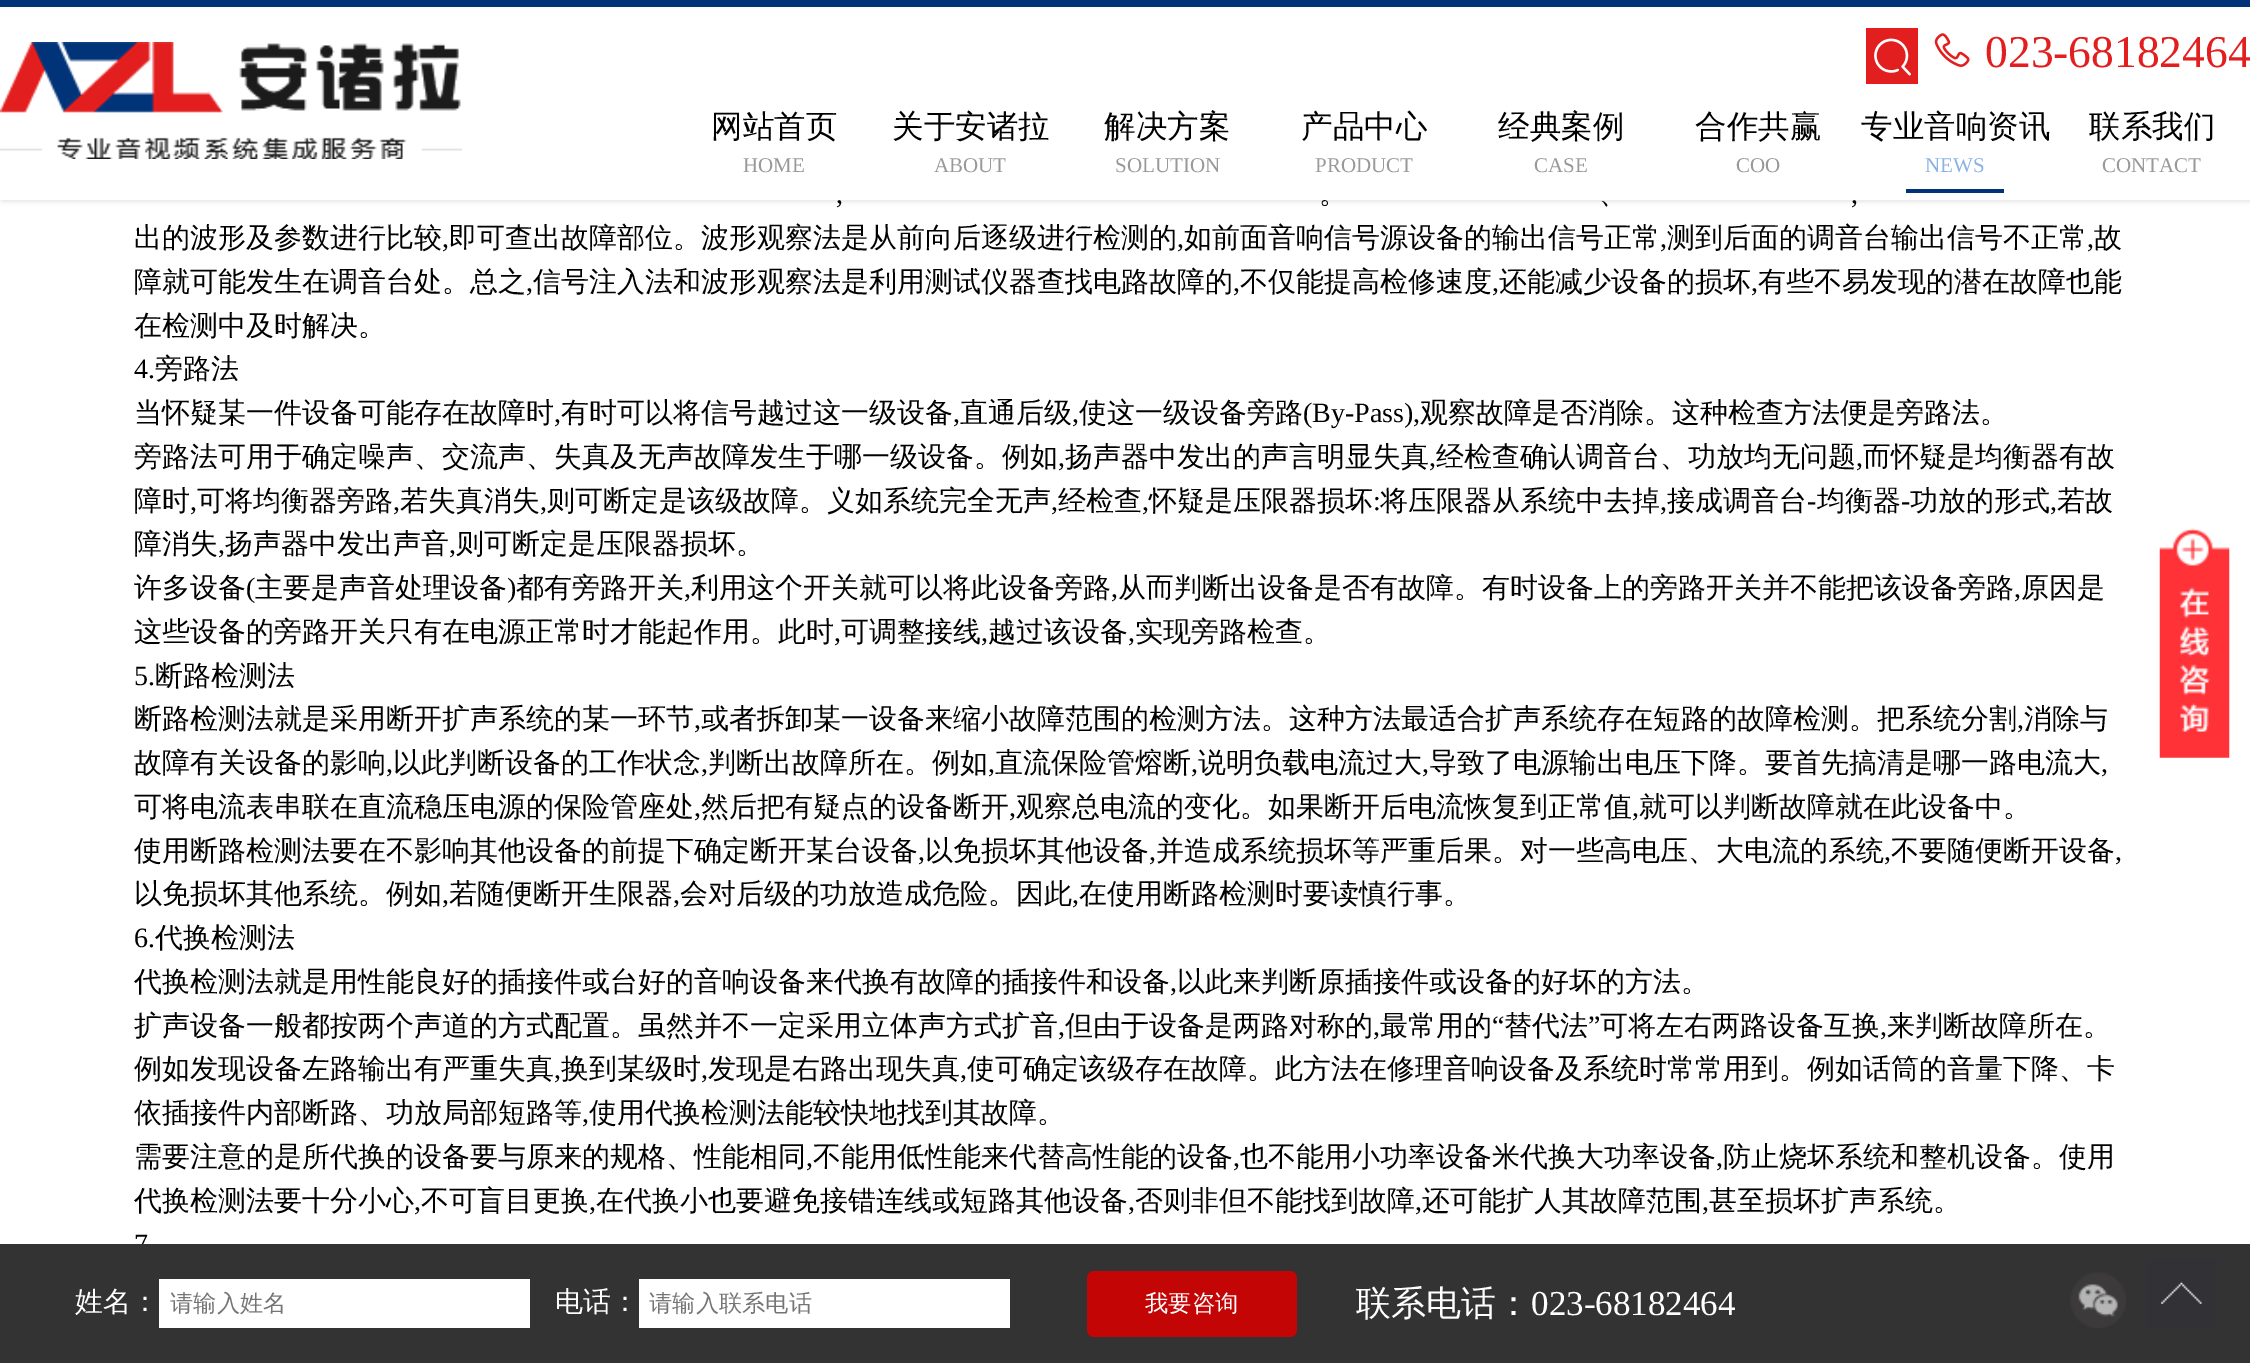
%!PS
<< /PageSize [2250 1363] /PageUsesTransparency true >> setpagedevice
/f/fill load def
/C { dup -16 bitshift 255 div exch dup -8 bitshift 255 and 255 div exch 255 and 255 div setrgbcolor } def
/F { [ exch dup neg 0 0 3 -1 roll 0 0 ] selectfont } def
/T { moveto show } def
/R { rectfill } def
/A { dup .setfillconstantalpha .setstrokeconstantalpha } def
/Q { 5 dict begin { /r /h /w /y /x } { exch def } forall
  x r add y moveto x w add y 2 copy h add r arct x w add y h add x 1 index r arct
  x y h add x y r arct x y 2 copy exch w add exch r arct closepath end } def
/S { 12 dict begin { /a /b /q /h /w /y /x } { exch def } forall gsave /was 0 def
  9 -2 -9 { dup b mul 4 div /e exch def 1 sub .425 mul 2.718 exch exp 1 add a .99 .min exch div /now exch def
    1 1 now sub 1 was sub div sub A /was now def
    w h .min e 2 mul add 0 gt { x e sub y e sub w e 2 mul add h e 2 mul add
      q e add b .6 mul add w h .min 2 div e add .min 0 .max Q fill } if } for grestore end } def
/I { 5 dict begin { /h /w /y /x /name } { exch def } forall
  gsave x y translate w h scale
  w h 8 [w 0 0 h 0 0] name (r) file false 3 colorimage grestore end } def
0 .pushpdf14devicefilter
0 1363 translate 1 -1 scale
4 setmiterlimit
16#FFFFFF C
0 0 2250 1363 R
16#DFDFDF C
2 2 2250 199 0 2.5 1 S
16#FFFFFF C
0 7 2250 193 R
16#003378 C
0 0 2250 7 R
(1.rgb) 0 42 462 117 I
16#E21E1E C
1866 28 52 56 R
(2.rgb) 1874 38 37 38 I
(3.rgb) 1934 33 36 34 I
/LiberationSerif-Regular 45.5 F
(023-68182464) 1985 67 T
/WenQuanYiZenHei-Medium 31.5 F
16#000000 C
(网站首页) 711 137 T
/LiberationSerif-Regular 21 F
16#999999 C
(HOME) 743 172 T
/WenQuanYiZenHei-Medium 31.5 F
16#000000 C
(关于安诸拉) 892 137 T
/LiberationSerif-Regular 21 F
16#999999 C
(ABOUT) 934 172 T
/WenQuanYiZenHei-Medium 31.5 F
16#000000 C
(解决方案) 1104 137 T
/LiberationSerif-Regular 21 F
16#999999 C
(SOLUTION) 1115 172 T
/WenQuanYiZenHei-Medium 31.5 F
16#000000 C
(产品中心) 1301 137 T
/LiberationSerif-Regular 21 F
16#999999 C
(PRODUCT) 1315 172 T
/WenQuanYiZenHei-Medium 31.5 F
16#000000 C
(经典案例) 1498 137 T
/LiberationSerif-Regular 21 F
16#999999 C
(CASE) 1534 172 T
/WenQuanYiZenHei-Medium 31.5 F
16#000000 C
(合作共赢) 1695 137 T
/LiberationSerif-Regular 21 F
16#999999 C
(COO) 1736 172 T
/WenQuanYiZenHei-Medium 31.5 F
16#000000 C
(专业音响资讯) 1861 137 T
/LiberationSerif-Regular 21 F
16#8CB1E3 C
(NEWS) 1925 172 T
16#003378 C
1906 189 98 4 R
/WenQuanYiZenHei-Medium 31.5 F
16#000000 C
(联系我们) 2089 137 T
/LiberationSerif-Regular 21 F
16#999999 C
(CONTACT) 2102 172 T
/LiberationSerif-Regular 28 F
16#000000 C
(,) 836 203 T
/WenQuanYiZenHei-Medium 28 F
(。) 1319 203 T
(、) 1599 203 T
/LiberationSerif-Regular 28 F
(,) 1851 203 T
/WenQuanYiZenHei-Medium 28 F
(出的波形及参数进行比较) 134 247 T
/LiberationSerif-Regular 28 F
(,) 442 247 T
/WenQuanYiZenHei-Medium 28 F
(即可查出故障部位。波形观察法是从前向后逐级进行检测的) 449 247 T
/LiberationSerif-Regular 28 F
(,) 1177 247 T
/WenQuanYiZenHei-Medium 28 F
(如前面音响信号源设备的输出信号正常) 1184 247 T
/LiberationSerif-Regular 28 F
(,) 1660 247 T
/WenQuanYiZenHei-Medium 28 F
(测到后面的调音台输出信号不正常) 1667 247 T
/LiberationSerif-Regular 28 F
(,) 2087 247 T
/WenQuanYiZenHei-Medium 28 F
(故) 2094 247 T
(障就可能发生在调音台处。总之) 134 291 T
/LiberationSerif-Regular 28 F
(,) 526 291 T
/WenQuanYiZenHei-Medium 28 F
(信号注入法和波形观察法是利用测试仪器查找电路故障的) 533 291 T
/LiberationSerif-Regular 28 F
(,) 1233 291 T
/WenQuanYiZenHei-Medium 28 F
(不仅能提高检修速度) 1240 291 T
/LiberationSerif-Regular 28 F
(,) 1492 291 T
/WenQuanYiZenHei-Medium 28 F
(还能减少设备的损坏) 1499 291 T
/LiberationSerif-Regular 28 F
(,) 1751 291 T
/WenQuanYiZenHei-Medium 28 F
(有些不易发现的潜在故障也能) 1758 291 T
(在检测中及时解决。) 134 335 T
/LiberationSerif-Regular 28 F
(4.) 134 378 T
/WenQuanYiZenHei-Medium 28 F
(旁路法) 155 378 T
(当怀疑某一件设备可能存在故障时) 134 422 T
/LiberationSerif-Regular 28 F
(,) 554 422 T
/WenQuanYiZenHei-Medium 28 F
(有时可以将信号越过这一级设备) 561 422 T
/LiberationSerif-Regular 28 F
(,) 953 422 T
/WenQuanYiZenHei-Medium 28 F
(直通后级) 960 422 T
/LiberationSerif-Regular 28 F
(,) 1072 422 T
/WenQuanYiZenHei-Medium 28 F
(使这一级设备旁路) 1079 422 T
/LiberationSerif-Regular 28 F
(\(By-Pass\),) 1303 422 T
/WenQuanYiZenHei-Medium 28 F
(观察故障是否消除。这种检查方法便是旁路法。) 1420 422 T
(旁路法可用于确定噪声、交流声、失真及无声故障发生于哪一级设备。例如) 134 466 T
/LiberationSerif-Regular 28 F
(,) 1058 466 T
/WenQuanYiZenHei-Medium 28 F
(扬声器中发出的声言明显失真) 1065 466 T
/LiberationSerif-Regular 28 F
(,) 1429 466 T
/WenQuanYiZenHei-Medium 28 F
(经检查确认调音台、功放均无问题) 1436 466 T
/LiberationSerif-Regular 28 F
(,) 1856 466 T
/WenQuanYiZenHei-Medium 28 F
(而怀疑是均衡器有故) 1863 466 T
(障时) 134 510 T
(可将均衡器旁路) 197 510 T
(若失真消失) 400 510 T
(则可断定是该级故障。义如系统完全无声) 547 510 T
(经检查) 1058 510 T
(怀疑是压限器损坏) 1149 510 T
/LiberationSerif-Regular 28 F
(:) 1373 510 T
/WenQuanYiZenHei-Medium 28 F
(将压限器从系统中去掉) 1380 510 T
(接成调音台) 1667 510 T
/LiberationSerif-Regular 28 F
(-) 1807 510 T
/WenQuanYiZenHei-Medium 28 F
(均衡器) 1817 510 T
/LiberationSerif-Regular 28 F
(-) 1901 510 T
/WenQuanYiZenHei-Medium 28 F
(功放的形式) 1910 510 T
(若故) 2057 510 T
/LiberationSerif-Regular 28 F
(,) 190 510 T
(,) 393 510 T
(,) 540 510 T
(,) 1051 510 T
(,) 1142 510 T
(,) 1660 510 T
(,) 2050 510 T
/WenQuanYiZenHei-Medium 28 F
(障消失) 134 553 T
/LiberationSerif-Regular 28 F
(,) 218 553 T
/WenQuanYiZenHei-Medium 28 F
(扬声器中发出声音) 225 553 T
/LiberationSerif-Regular 28 F
(,) 449 553 T
/WenQuanYiZenHei-Medium 28 F
(则可断定是压限器损坏。) 456 553 T
(许多设备) 134 597 T
/LiberationSerif-Regular 28 F
(\() 246 597 T
/WenQuanYiZenHei-Medium 28 F
(主要是声音处理设备) 255 597 T
/LiberationSerif-Regular 28 F
(\)) 507 597 T
/WenQuanYiZenHei-Medium 28 F
(都有旁路开关) 516 597 T
/LiberationSerif-Regular 28 F
(,) 684 597 T
/WenQuanYiZenHei-Medium 28 F
(利用这个开关就可以将此设备旁路) 691 597 T
/LiberationSerif-Regular 28 F
(,) 1111 597 T
/WenQuanYiZenHei-Medium 28 F
(从而判断出设备是否有故障。有时设备上的旁路开关并不能把该设备旁路) 1118 597 T
/LiberationSerif-Regular 28 F
(,) 2014 597 T
/WenQuanYiZenHei-Medium 28 F
(原因是) 2021 597 T
(这些设备的旁路开关只有在电源正常时才能起作用。此时) 134 641 T
/LiberationSerif-Regular 28 F
(,) 834 641 T
/WenQuanYiZenHei-Medium 28 F
(可调整接线) 841 641 T
/LiberationSerif-Regular 28 F
(,) 981 641 T
/WenQuanYiZenHei-Medium 28 F
(越过该设备) 988 641 T
/LiberationSerif-Regular 28 F
(,) 1128 641 T
/WenQuanYiZenHei-Medium 28 F
(实现旁路检查。) 1135 641 T
/LiberationSerif-Regular 28 F
(5.) 134 685 T
/WenQuanYiZenHei-Medium 28 F
(断路检测法) 155 685 T
(断路检测法就是采用断开扩声系统的某一环节) 134 728 T
/LiberationSerif-Regular 28 F
(,) 694 728 T
/WenQuanYiZenHei-Medium 28 F
(或者拆卸某一设备来缩小故障范围的检测方法。这种方法最适合扩声系统存在短路的故障检测。把系统分割) 701 728 T
/LiberationSerif-Regular 28 F
(,) 2017 728 T
/WenQuanYiZenHei-Medium 28 F
(消除与) 2024 728 T
(故障有关设备的影响) 134 772 T
/LiberationSerif-Regular 28 F
(,) 386 772 T
/WenQuanYiZenHei-Medium 28 F
(以此判断设备的工作状念) 393 772 T
/LiberationSerif-Regular 28 F
(,) 701 772 T
/WenQuanYiZenHei-Medium 28 F
(判断出故障所在。例如) 708 772 T
/LiberationSerif-Regular 28 F
(,) 988 772 T
/WenQuanYiZenHei-Medium 28 F
(直流保险管熔断) 995 772 T
/LiberationSerif-Regular 28 F
(,) 1191 772 T
/WenQuanYiZenHei-Medium 28 F
(说明负载电流过大) 1198 772 T
/LiberationSerif-Regular 28 F
(,) 1422 772 T
/WenQuanYiZenHei-Medium 28 F
(导致了电源输出电压下降。要首先搞清是哪一路电流大) 1429 772 T
/LiberationSerif-Regular 28 F
(,) 2101 772 T
/WenQuanYiZenHei-Medium 28 F
(可将电流表串联在直流稳压电源的保险管座处) 134 816 T
/LiberationSerif-Regular 28 F
(,) 694 816 T
/WenQuanYiZenHei-Medium 28 F
(然后把有疑点的设备断开) 701 816 T
/LiberationSerif-Regular 28 F
(,) 1009 816 T
/WenQuanYiZenHei-Medium 28 F
(观察总电流的变化。如果断开后电流恢复到正常值) 1016 816 T
/LiberationSerif-Regular 28 F
(,) 1632 816 T
/WenQuanYiZenHei-Medium 28 F
(就可以判断故障就在此设备中。) 1639 816 T
(使用断路检测法要在不影响其他设备的前提下确定断开某台设备) 134 860 T
/LiberationSerif-Regular 28 F
(,) 918 860 T
/WenQuanYiZenHei-Medium 28 F
(以免损坏其他设备) 925 860 T
/LiberationSerif-Regular 28 F
(,) 1149 860 T
/WenQuanYiZenHei-Medium 28 F
(并造成系统损坏等严重后果。对一些高电压、大电流的系统) 1156 860 T
/LiberationSerif-Regular 28 F
(,) 1884 860 T
/WenQuanYiZenHei-Medium 28 F
(不要随便断开设备) 1891 860 T
/LiberationSerif-Regular 28 F
(,) 2115 860 T
/WenQuanYiZenHei-Medium 28 F
(以免损坏其他系统。例如) 134 903 T
/LiberationSerif-Regular 28 F
(,) 442 903 T
/WenQuanYiZenHei-Medium 28 F
(若随便断开生限器) 449 903 T
/LiberationSerif-Regular 28 F
(,) 673 903 T
/WenQuanYiZenHei-Medium 28 F
(会对后级的功放造成危险。因此) 680 903 T
/LiberationSerif-Regular 28 F
(,) 1072 903 T
/WenQuanYiZenHei-Medium 28 F
(在使用断路检测时要读慎行事。) 1079 903 T
/LiberationSerif-Regular 28 F
(6.) 134 947 T
/WenQuanYiZenHei-Medium 28 F
(代换检测法) 155 947 T
(代换检测法就是用性能良好的插接件或台好的音响设备来代换有故障的插接件和设备) 134 991 T
/LiberationSerif-Regular 28 F
(,) 1170 991 T
/WenQuanYiZenHei-Medium 28 F
(以此来判断原插接件或设备的好坏的方法。) 1177 991 T
(扩声设备一般都按两个声道的方式配置。虽然并不一定采用立体声方式扩音) 134 1035 T
(但由于设备是两路对称的) 1065 1035 T
(最常用的) 1380 1035 T
/LiberationSerif-Regular 28 F
(“) 1492 1035 T
/WenQuanYiZenHei-Medium 28 F
(替代法) 1504 1035 T
/LiberationSerif-Regular 28 F
(”) 1588 1035 T
/WenQuanYiZenHei-Medium 28 F
(可将左右两路设备互换) 1600 1035 T
(来判断故障所在。) 1887 1035 T
/LiberationSerif-Regular 28 F
(,) 1058 1035 T
(,) 1373 1035 T
(,) 1880 1035 T
/WenQuanYiZenHei-Medium 28 F
(例如发现设备左路输出有严重失真) 134 1078 T
/LiberationSerif-Regular 28 F
(,) 554 1078 T
/WenQuanYiZenHei-Medium 28 F
(换到某级时) 561 1078 T
/LiberationSerif-Regular 28 F
(,) 701 1078 T
/WenQuanYiZenHei-Medium 28 F
(发现是右路出现失真) 708 1078 T
/LiberationSerif-Regular 28 F
(,) 960 1078 T
/WenQuanYiZenHei-Medium 28 F
(使可确定该级存在故障。此方法在修理音响设备及系统时常常用到。例如话筒的音量下降、卡) 967 1078 T
(依插接件内部断路、功放局部短路等) 134 1122 T
/LiberationSerif-Regular 28 F
(,) 582 1122 T
/WenQuanYiZenHei-Medium 28 F
(使用代换检测法能较快地找到其故障。) 589 1122 T
(需要注意的是所代换的设备要与原来的规格、性能相同) 134 1166 T
/LiberationSerif-Regular 28 F
(,) 806 1166 T
/WenQuanYiZenHei-Medium 28 F
(不能用低性能来代替高性能的设备) 813 1166 T
/LiberationSerif-Regular 28 F
(,) 1233 1166 T
/WenQuanYiZenHei-Medium 28 F
(也不能用小功率设备米代换大功率设备) 1240 1166 T
/LiberationSerif-Regular 28 F
(,) 1716 1166 T
/WenQuanYiZenHei-Medium 28 F
(防止烧坏系统和整机设备。使用) 1723 1166 T
(代换检测法要十分小心) 134 1210 T
/LiberationSerif-Regular 28 F
(,) 414 1210 T
/WenQuanYiZenHei-Medium 28 F
(不可盲目更换) 421 1210 T
/LiberationSerif-Regular 28 F
(,) 589 1210 T
/WenQuanYiZenHei-Medium 28 F
(在代换小也要避免接错连线或短路其他设备) 596 1210 T
/LiberationSerif-Regular 28 F
(,) 1128 1210 T
/WenQuanYiZenHei-Medium 28 F
(否则非但不能找到故障) 1135 1210 T
/LiberationSerif-Regular 28 F
(,) 1415 1210 T
/WenQuanYiZenHei-Medium 28 F
(还可能扩人其故障范围) 1422 1210 T
/LiberationSerif-Regular 28 F
(,) 1702 1210 T
/WenQuanYiZenHei-Medium 28 F
(甚至损坏扩声系统。) 1709 1210 T
/LiberationSerif-Regular 28 F
(7) 134 1253 T
(4.rgb) 2159 528 71 230 I
16#333333 C
0 1244 2250 119 R
/WenQuanYiZenHei-Medium 28 F
16#FFFFFF C
(姓名：) 75 1311 T
159 1279 371 49 R
/WenQuanYiZenHei-Medium 23.25 F
16#757575 C
(请输入姓名) 170 1311 T
/WenQuanYiZenHei-Medium 28 F
16#FFFFFF C
(电话：) 555 1311 T
639 1279 371 49 R
/WenQuanYiZenHei-Medium 23.25 F
16#757575 C
(请输入联系电话) 649 1311 T
16#C30505 C
1087 1271 210 66 7 Q f
16#FFFFFF C
(我要咨询) 1145 1311 T
/WenQuanYiZenHei-Medium 35 F
(联系电话：) 1356 1315 T
/LiberationSerif-Regular 35 F
(023-68182464) 1531 1315 T
(5.rgb) 2070 1272 56 56 I
16#323236 C
2146 1258 70 70 R
(6.rgb) 2161 1282 41 22 I
.poppdf14devicefilter showpage
